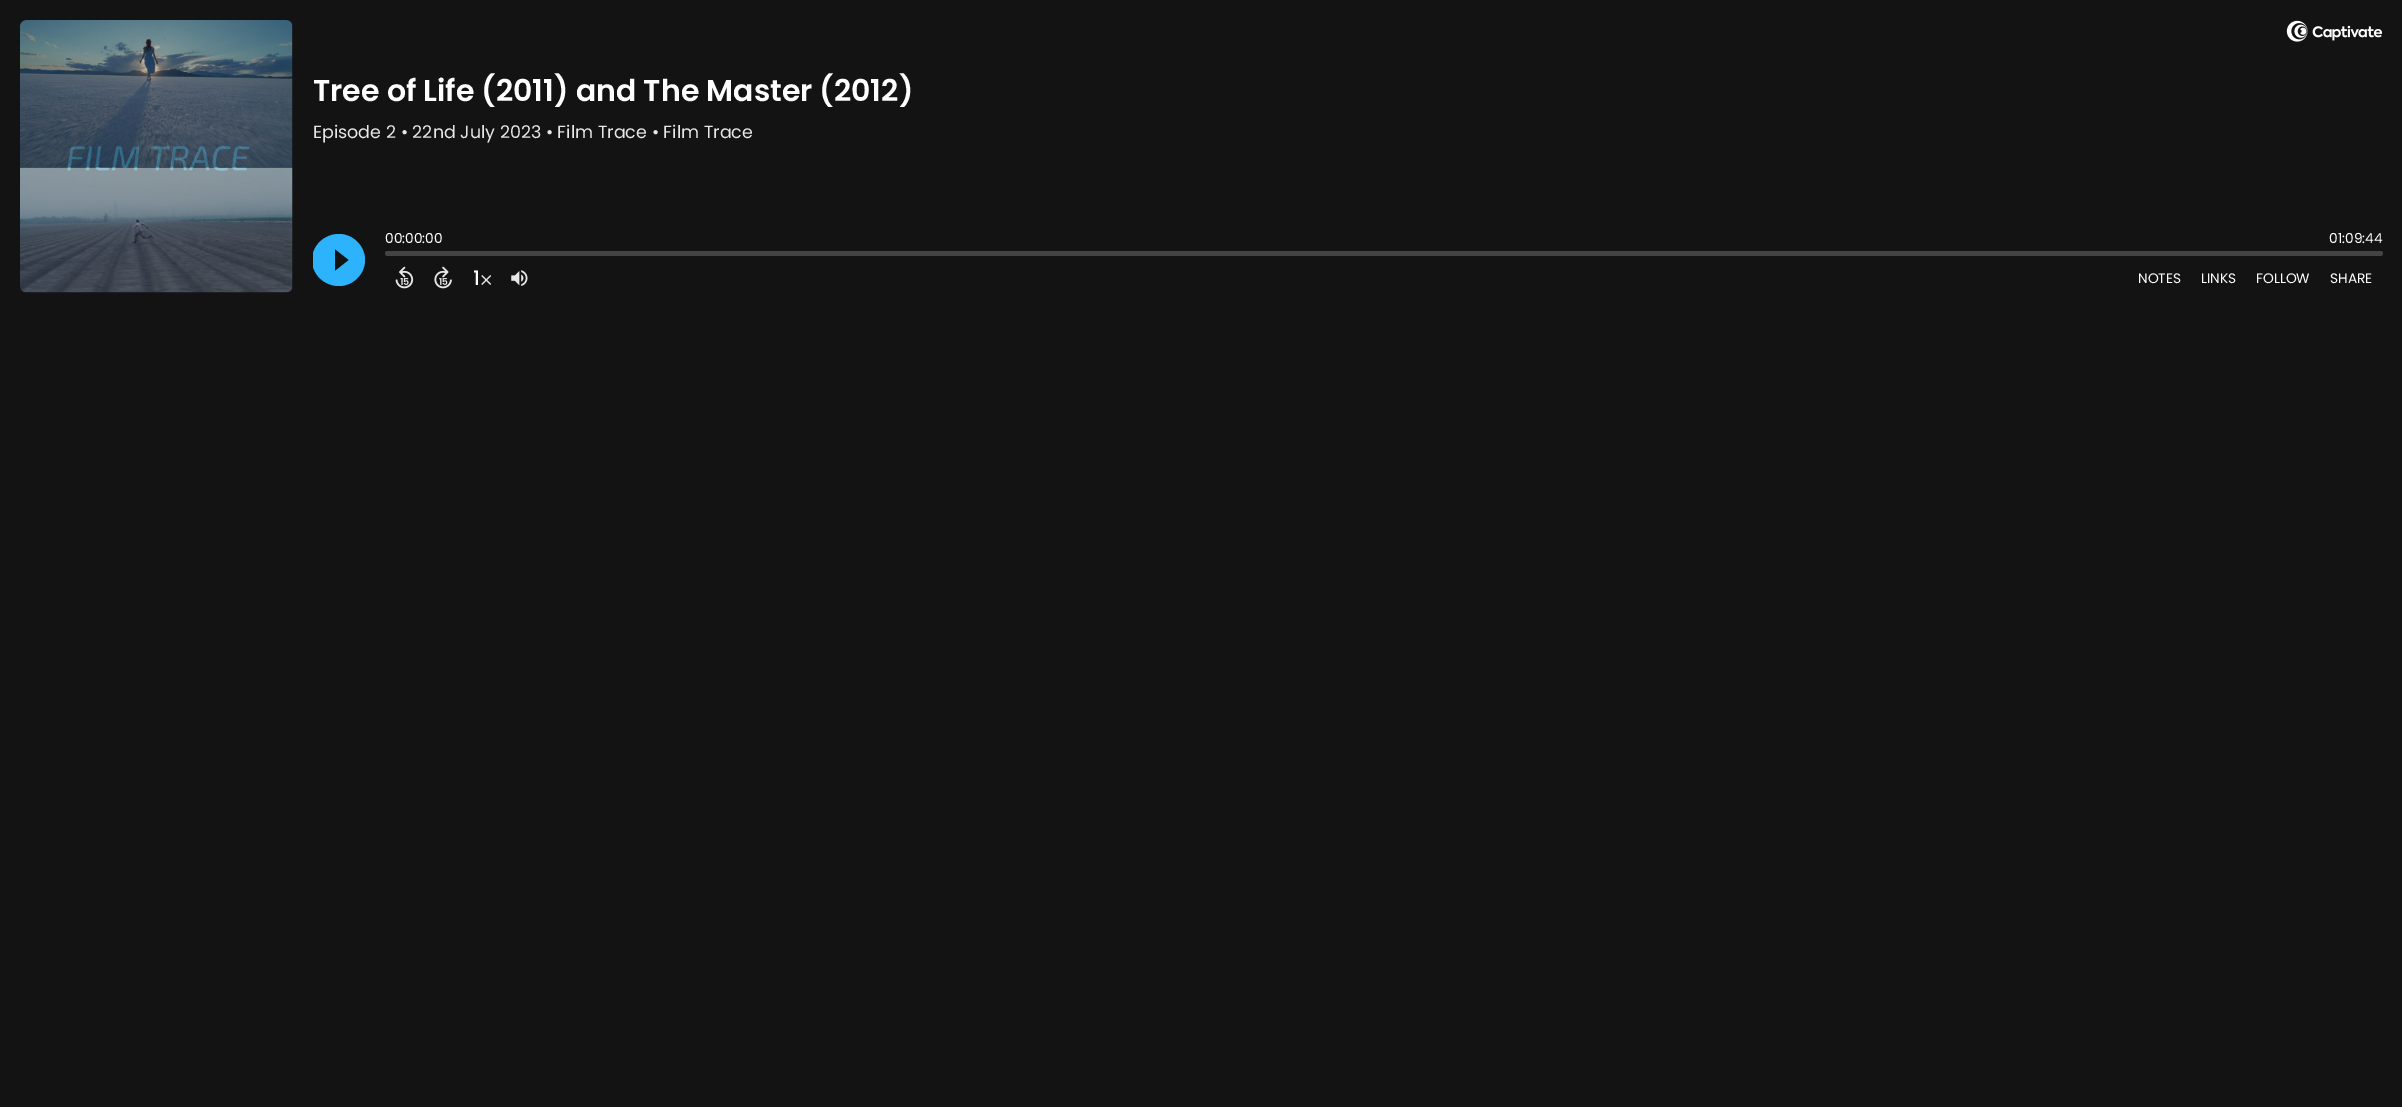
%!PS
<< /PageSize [2402 1107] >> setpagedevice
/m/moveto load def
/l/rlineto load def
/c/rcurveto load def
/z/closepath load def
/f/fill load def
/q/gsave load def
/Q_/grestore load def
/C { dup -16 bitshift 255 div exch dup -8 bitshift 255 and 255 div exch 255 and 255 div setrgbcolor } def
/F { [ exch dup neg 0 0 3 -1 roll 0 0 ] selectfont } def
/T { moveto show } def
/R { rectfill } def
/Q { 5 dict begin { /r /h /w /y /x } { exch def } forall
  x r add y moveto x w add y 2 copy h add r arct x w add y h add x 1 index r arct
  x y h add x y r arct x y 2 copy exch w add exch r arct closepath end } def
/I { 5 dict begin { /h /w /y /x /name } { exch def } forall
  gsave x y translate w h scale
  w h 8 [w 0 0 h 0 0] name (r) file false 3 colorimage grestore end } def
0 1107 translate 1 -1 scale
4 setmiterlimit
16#131313 C
0 0 2402 1107 R
(1.rgb) 20 20 273 273 I
(2.rgb) 2286 20 96 22 I
/Poppins-SemiBold 30 F
16#FFFFFF C
(Tree of Life \(2011\) and The Master \(2012\)) 313 101 T
/Poppins-Regular 17.5 F
16#E8E8E8 C
(Episode 2 • 22nd July 2023 • Film Trace • Film Trace) 313 138 T
q
313 234 52 52 rectclip
16#2CB3FB C
339 286 m 14 0 26 -12 26 -26 c 0 -14 -12 -26 -26 -26 c -15 0 -27 12 -27 26 c 0 14 12 26 27 26 c z 335 271 m 14 -11 l -14 -11 l z eofill
Q_
/Poppins-Regular 13.75 F
16#FFFFFF C
(00:00:00) 385 243 T
(01:09:44) 2329 243 T
16#434343 C
385 251 1998 5 2.5 Q f
(3.rgb) 395 266 19 23 I
(4.rgb) 434 266 18 23 I
/Poppins-Medium 20 F
16#FFFFFF C
(1) 473 285 T
(5.rgb) 481 275 10 10 I
(6.rgb) 511 270 17 16 I
/Poppins-Regular 13.75 F
(NOTES) 2138 283 T
(LINKS) 2201 283 T
(FOLLOW) 2256 283 T
(SHARE) 2330 283 T
showpage
